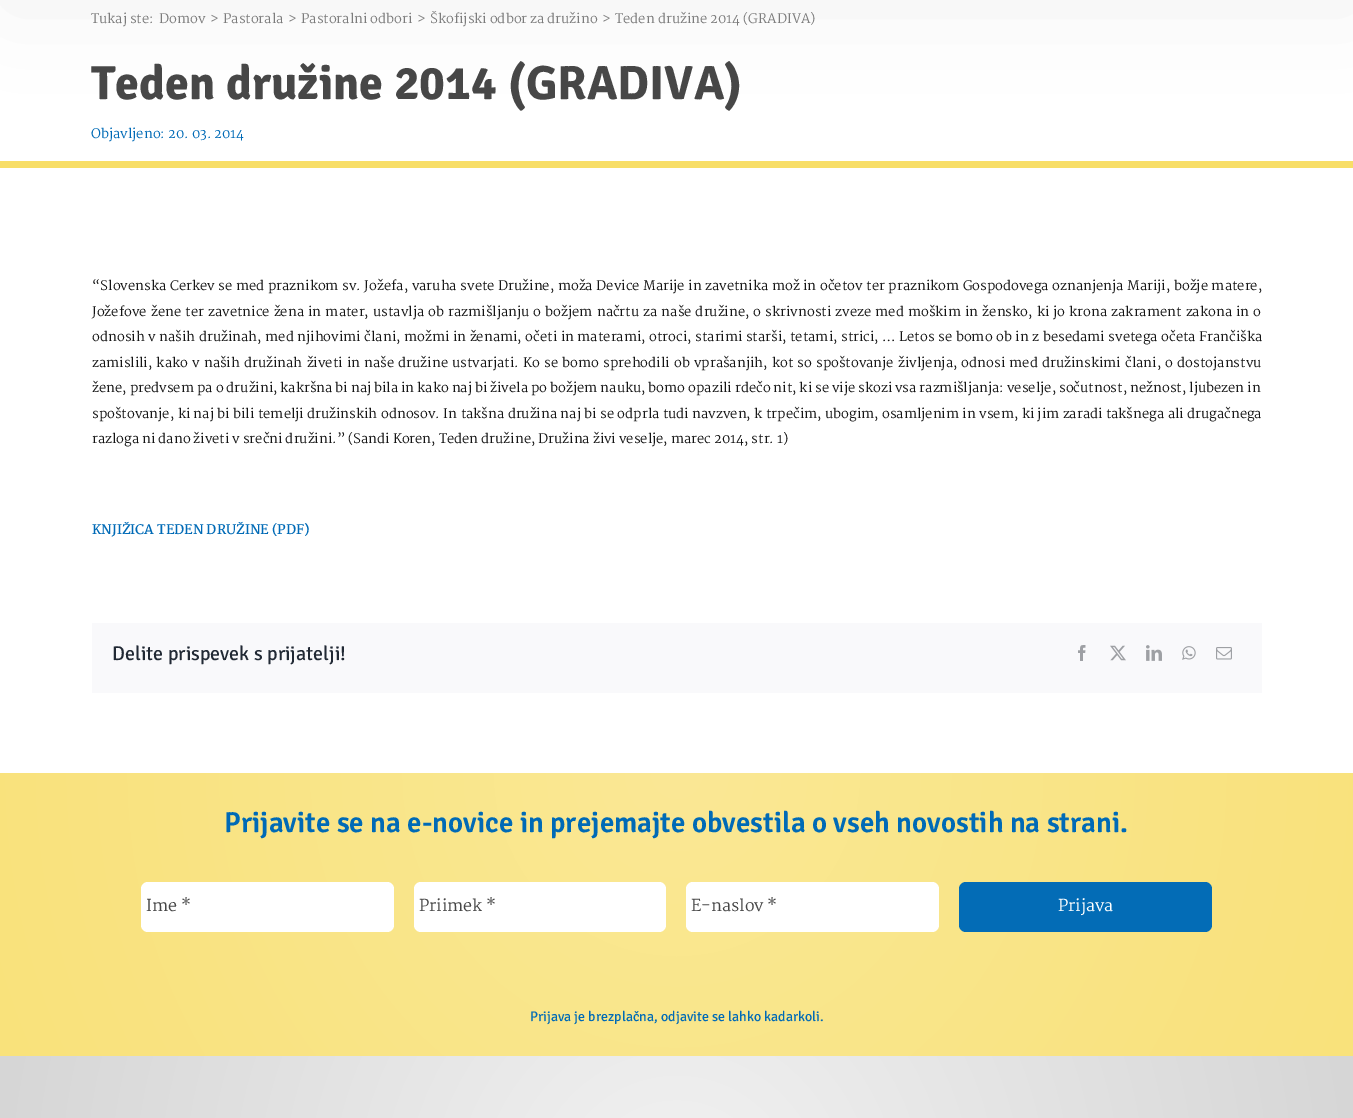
%!PS
<< /PageSize [1353 1118] /PageUsesTransparency true >> setpagedevice
/m/moveto load def
/l/rlineto load def
/z/closepath load def
/f/fill load def
/q/gsave load def
/Q_/grestore load def
/C { dup -16 bitshift 255 div exch dup -8 bitshift 255 and 255 div exch 255 and 255 div setrgbcolor } def
/F { [ exch dup neg 0 0 3 -1 roll 0 0 ] selectfont } def
/T { moveto show } def
/R { rectfill } def
/A { dup .setfillconstantalpha .setstrokeconstantalpha } def
/Q { 5 dict begin { /r /h /w /y /x } { exch def } forall
  x r add y moveto x w add y 2 copy h add r arct x w add y h add x 1 index r arct
  x y h add x y r arct x y 2 copy exch w add exch r arct closepath end } def
/S { 12 dict begin { /a /b /q /h /w /y /x } { exch def } forall gsave /was 0 def
  9 -2 -9 { dup b mul 4 div /e exch def 1 sub .425 mul 2.718 exch exp 1 add a .99 .min exch div /now exch def
    1 1 now sub 1 was sub div sub A /was now def
    w h .min e 2 mul add 0 gt { x e sub y e sub w e 2 mul add h e 2 mul add
      q e add b .6 mul add w h .min 2 div e add .min 0 .max Q fill } if } for grestore end } def
/I { 5 dict begin { /h /w /y /x /name } { exch def } forall
  gsave x y translate w h scale
  w h 8 [w 0 0 h 0 0] name (r) file false 3 colorimage grestore end } def
0 .pushpdf14devicefilter
0 1118 translate 1 -1 scale
4 setmiterlimit
16#FFFFFF C
0 0 1353 1118 R
16#F2F2F2 C
3 -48 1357 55 0 50 1 S
16#F8DE67 C
0 161 1353 7 R
/Martel-Regular 13 F
16#7C7C7C C
(Tukaj ste:) 91 23 T
(Domov) 159 23 T
(>) 210 23 T
(Pastorala) 223 23 T
(>) 288 23 T
(Pastoralni odbori) 301 23 T
(>) 417 23 T
(Škofijski odbor za družino) 430 23 T
(>) 602 23 T
(Teden družine 2014 \(GRADIVA\)) 615 23 T
/Signika-Bold 48 F
16#474747 C
(Teden družine 2014 \(GRADIVA\)) 91 99 T
/Martel-Regular 13 F
16#006AB6 C
(Objavljeno: 20. 03. 2014) 91 138 T
16#141414 C
92 290 m .6 0 32 (“Slovenska Cerkev se med praznikom sv. Jožefa, varuha svete Družine, moža Device Marije in zavetnika mož in očetov ter praznikom Gospodovega oznanjenja Mariji, božje matere,) widthshow
92 316 m 1.15 0 32 (Jožefove žene ter zavetnice žena in mater, ustavlja ob razmišljanju o božjem načrtu za naše družine, o skrivnosti zveze med moškim in žensko, ki jo krona zakrament zakona in o) widthshow
92 341 m .6 0 32 (odnosih v naših družinah, med njihovimi člani, možmi in ženami, očeti in materami, otroci, starimi starši, tetami, strici, … Letos se bomo ob in z besedami svetega očeta Frančiška) widthshow
92 367 m 1.25 0 32 (zamislili, kako v naših družinah živeti in naše družine ustvarjati. Ko se bomo sprehodili ob vprašanjih, kot so spoštovanje življenja, odnosi med družinskimi člani, o dostojanstvu) widthshow
(žene, predvsem pa o družini, kakršna bi naj bila in kako naj bi živela po božjem nauku, bomo opazili rdečo nit, ki se vije skozi vsa razmišljanja: veselje, sočutnost, nežnost, ljubezen in) 92 392 T
92 418 m .45 0 32 (spoštovanje, ki naj bi bili temelji družinskih odnosov. In takšna družina naj bi se odprla tudi navzven, k trpečim, ubogim, osamljenim in vsem, ki jim zaradi takšnega ali drugačnega) widthshow
(razloga ni dano živeti v srečni družini.” \(Sandi Koren, Teden družine, Družina živi veselje, marec 2014, str. 1\)) 92 443 T
/Martel-Bold 13 F
16#006AB6 C
(KNJIŽICA TEDEN DRUŽINE \(PDF\)) 92 534 T
16#F9F9FB C
92 623 1170 70 R
/Signika-Regular 20 F
16#212934 C
(Delite prispevek s prijatelji!) 112 660 T
(1.rgb) 1078 645 8 16 I
(2.rgb) 1110 645 16 16 I
(3.rgb) 1146 645 16 16 I
(4.rgb) 1182 646 14 14 I
(5.rgb) 1216 647 16 13 I
q 0 773 m 1353 0 l 0 283 l -1353 0 l z clip newpath 677 773 translate 733 733 scale
<< /ShadingType 3 /ColorSpace /DeviceRGB /Coords [0 0 0 0 0 1] /Extend [true true] /Function << /FunctionType 2 /Domain [0 1] /C0 [.98 .91 .584] /C1 [.976 .886 .482] /N 1 >> >> shfill Q_
/Signika-SemiBold 29 F
16#006AB6 C
(Prijavite se na e-novice in prejemajte obvestila o vseh novostih na strani.) 224 832 T
16#FFFFFF C
141 882 253 50 7 Q f
/Martel-Regular 16 F
16#474747 C
(Ime *) 146 911 T
16#FFFFFF C
414 882 252 50 7 Q f
16#474747 C
(Priimek *) 419 911 T
16#FFFFFF C
686 882 253 50 7 Q f
16#474747 C
(E-naslov *) 691 911 T
16#036CB6 C
959 882 253 50 7 Q f
16#FFFFFF C
(Prijava) 1058 911 T
/Signika-Regular 14 F
16#006AB6 C
(Prijava je brezplačna, odjavite se lahko kadarkoli.) 530 1021 T
q 0 1056 m 1353 0 l 0 62 l -1353 0 l z clip newpath 677 1199 translate 691 691 scale
<< /ShadingType 3 /ColorSpace /DeviceRGB /Coords [0 0 0 0 0 1] /Extend [true true] /Function << /FunctionType 2 /Domain [0 1] /C0 [.949 .949 .949] /C1 [.839 .839 .839] /N 1 >> >> shfill Q_
.poppdf14devicefilter showpage
